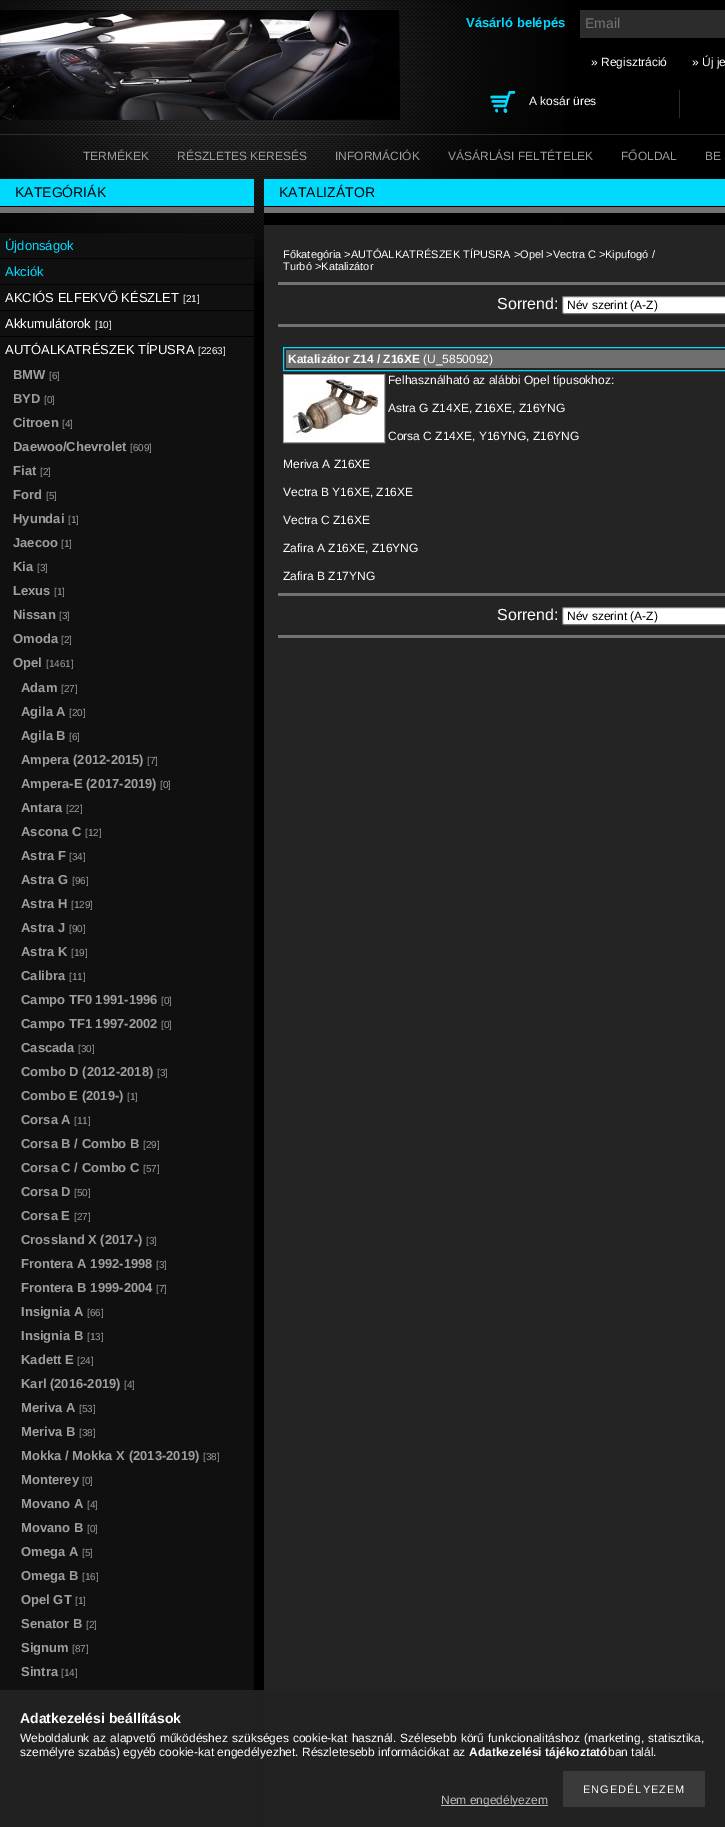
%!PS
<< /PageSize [725 1827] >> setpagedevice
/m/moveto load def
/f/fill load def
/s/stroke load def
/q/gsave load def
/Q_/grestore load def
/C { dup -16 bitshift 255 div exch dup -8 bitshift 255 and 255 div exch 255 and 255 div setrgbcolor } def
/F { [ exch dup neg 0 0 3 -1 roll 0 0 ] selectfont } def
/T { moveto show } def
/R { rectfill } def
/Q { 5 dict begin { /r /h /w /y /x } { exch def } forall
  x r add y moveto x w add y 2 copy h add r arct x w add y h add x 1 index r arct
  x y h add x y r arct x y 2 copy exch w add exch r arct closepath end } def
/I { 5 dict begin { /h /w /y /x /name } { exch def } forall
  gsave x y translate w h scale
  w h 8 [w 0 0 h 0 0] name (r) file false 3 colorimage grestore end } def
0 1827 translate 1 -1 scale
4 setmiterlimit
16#000000 C
0 0 725 1827 R
16#202020 C
254 1690 10 137 R
(1.rgb) 0 0 564 282 I
(2.rgb) 0 10 400 110 I
/LiberationSans-Bold 13 F
16#00DAFF C
(Vásárló belépés) 466 27 T
16#2C2C2C C
580 10 145 28 R
/LiberationSans-Regular 14 F
16#757575 C
(Email) 585 28 T
/LiberationSans-Regular 12 F
16#FFFFFF C
(» Regisztráció) 591 66 T
(» Új je) 692 66 T
16#2C2C2C C
679 90 1 28 R
(3.rgb) 490 91 26 22 I
16#FFFFFF C
(A kosár üres) 529 105 T
16#2C2C2C C
0 134 725 1 R
16#9E9E9E C
(TERMÉKEK) 83 160 T
(RÉSZLETES KERESÉS) 177 160 T
(INFORMÁCIÓK) 335 160 T
(VÁSÁRLÁSI FELTÉTELEK) 448 160 T
(FŐOLDAL) 621 160 T
(BE) 705 160 T
16#242424 C
264 225 461 1465 R
16#222222 C
264 1690 461 137 R
16#00DAFF C
0 179 254 27 R
/LiberationSans-Regular 14 F
16#000000 C
(KATEGÓRIÁK) 15 197 T
16#737373 C
0 207 254 6 R
16#101010 C
0 233 254 25 R
/LiberationSans-Regular 13 F
16#00DAFF C
(Újdonságok) 5 250 T
16#101010 C
0 259 254 25 R
16#00DAFF C
(Akciók) 5 276 T
16#101010 C
0 285 254 25 R
16#FFFFFF C
(AKCIÓS ELFEKVŐ KÉSZLET) 5 302 T
/LiberationSans-Regular 10 F
([21]) 183 302 T
16#101010 C
0 311 254 25 R
/LiberationSans-Regular 13 F
16#FFFFFF C
(Akkumulátorok) 5 328 T
/LiberationSans-Regular 10 F
([10]) 95 328 T
16#101010 C
0 337 254 1353 R
16#212121 C
0 1690 254 137 R
/LiberationSans-Regular 13 F
16#FFFFFF C
(AUTÓALKATRÉSZEK TÍPUSRA) 5 354 T
/LiberationSans-Regular 10 F
([2263]) 198 354 T
/LiberationSans-Bold 13 F
16#9E9E9E C
(BMW) 13 379 T
/LiberationSans-Regular 10 F
([6]) 49 379 T
/LiberationSans-Bold 13 F
(BYD) 13 403 T
/LiberationSans-Regular 10 F
([0]) 44 403 T
/LiberationSans-Bold 13 F
(Citroen) 13 427 T
/LiberationSans-Regular 10 F
([4]) 62 427 T
/LiberationSans-Bold 13 F
(Daewoo/Chevrolet) 13 451 T
/LiberationSans-Regular 10 F
([609]) 130 451 T
/LiberationSans-Bold 13 F
(Fiat) 13 475 T
/LiberationSans-Regular 10 F
([2]) 40 475 T
/LiberationSans-Bold 13 F
(Ford) 13 499 T
/LiberationSans-Regular 10 F
([5]) 46 499 T
/LiberationSans-Bold 13 F
(Hyundai) 13 523 T
/LiberationSans-Regular 10 F
([1]) 68 523 T
/LiberationSans-Bold 13 F
(Jaecoo) 13 547 T
/LiberationSans-Regular 10 F
([1]) 61 547 T
/LiberationSans-Bold 13 F
(Kia) 13 571 T
/LiberationSans-Regular 10 F
([3]) 37 571 T
/LiberationSans-Bold 13 F
(Lexus) 13 595 T
/LiberationSans-Regular 10 F
([1]) 54 595 T
/LiberationSans-Bold 13 F
(Nissan) 13 619 T
/LiberationSans-Regular 10 F
([3]) 59 619 T
/LiberationSans-Bold 13 F
(Omoda) 13 643 T
/LiberationSans-Regular 10 F
([2]) 61 643 T
/LiberationSans-Bold 13 F
(Opel) 13 667 T
/LiberationSans-Regular 10 F
([1461]) 46 667 T
/LiberationSans-Bold 13 F
(Adam) 21 692 T
/LiberationSans-Regular 10 F
([27]) 61 692 T
/LiberationSans-Bold 13 F
(Agila A) 21 716 T
/LiberationSans-Regular 10 F
([20]) 69 716 T
/LiberationSans-Bold 13 F
(Agila B) 21 740 T
/LiberationSans-Regular 10 F
([6]) 69 740 T
/LiberationSans-Bold 13 F
(Ampera \(2012-2015\)) 21 764 T
/LiberationSans-Regular 10 F
([7]) 147 764 T
/LiberationSans-Bold 13 F
(Ampera-E \(2017-2019\)) 21 788 T
/LiberationSans-Regular 10 F
([0]) 160 788 T
/LiberationSans-Bold 13 F
(Antara) 21 812 T
/LiberationSans-Regular 10 F
([22]) 66 812 T
/LiberationSans-Bold 13 F
(Ascona C) 21 836 T
/LiberationSans-Regular 10 F
([12]) 85 836 T
/LiberationSans-Bold 13 F
(Astra F) 21 860 T
/LiberationSans-Regular 10 F
([34]) 69 860 T
/LiberationSans-Bold 13 F
(Astra G) 21 884 T
/LiberationSans-Regular 10 F
([96]) 72 884 T
/LiberationSans-Bold 13 F
(Astra H) 21 908 T
/LiberationSans-Regular 10 F
([129]) 71 908 T
/LiberationSans-Bold 13 F
(Astra J) 21 932 T
/LiberationSans-Regular 10 F
([90]) 69 932 T
/LiberationSans-Bold 13 F
(Astra K) 21 956 T
/LiberationSans-Regular 10 F
([19]) 71 956 T
/LiberationSans-Bold 13 F
(Calibra) 21 980 T
/LiberationSans-Regular 10 F
([11]) 69 980 T
/LiberationSans-Bold 13 F
(Campo TF0 1991-1996) 21 1004 T
/LiberationSans-Regular 10 F
([0]) 161 1004 T
/LiberationSans-Bold 13 F
(Campo TF1 1997-2002) 21 1028 T
/LiberationSans-Regular 10 F
([0]) 161 1028 T
/LiberationSans-Bold 13 F
(Cascada) 21 1052 T
/LiberationSans-Regular 10 F
([30]) 78 1052 T
/LiberationSans-Bold 13 F
(Combo D \(2012-2018\)) 21 1076 T
/LiberationSans-Regular 10 F
([3]) 157 1076 T
/LiberationSans-Bold 13 F
(Combo E \(2019-\)) 21 1100 T
/LiberationSans-Regular 10 F
([1]) 127 1100 T
/LiberationSans-Bold 13 F
(Corsa A) 21 1124 T
/LiberationSans-Regular 10 F
([11]) 74 1124 T
/LiberationSans-Bold 13 F
(Corsa B / Combo B) 21 1148 T
/LiberationSans-Regular 10 F
([29]) 143 1148 T
/LiberationSans-Bold 13 F
(Corsa C / Combo C) 21 1172 T
/LiberationSans-Regular 10 F
([57]) 143 1172 T
/LiberationSans-Bold 13 F
(Corsa D) 21 1196 T
/LiberationSans-Regular 10 F
([50]) 74 1196 T
/LiberationSans-Bold 13 F
(Corsa E) 21 1220 T
/LiberationSans-Regular 10 F
([27]) 74 1220 T
/LiberationSans-Bold 13 F
(Crossland X \(2017-\)) 21 1244 T
/LiberationSans-Regular 10 F
([3]) 146 1244 T
/LiberationSans-Bold 13 F
(Frontera A 1992-1998) 21 1268 T
/LiberationSans-Regular 10 F
([3]) 156 1268 T
/LiberationSans-Bold 13 F
(Frontera B 1999-2004) 21 1292 T
/LiberationSans-Regular 10 F
([7]) 156 1292 T
/LiberationSans-Bold 13 F
(Insignia A) 21 1316 T
/LiberationSans-Regular 10 F
([66]) 87 1316 T
/LiberationSans-Bold 13 F
(Insignia B) 21 1340 T
/LiberationSans-Regular 10 F
([13]) 87 1340 T
/LiberationSans-Bold 13 F
(Kadett E) 21 1364 T
/LiberationSans-Regular 10 F
([24]) 77 1364 T
/LiberationSans-Bold 13 F
(Karl \(2016-2019\)) 21 1388 T
/LiberationSans-Regular 10 F
([4]) 124 1388 T
/LiberationSans-Bold 13 F
(Meriva A) 21 1412 T
/LiberationSans-Regular 10 F
([53]) 79 1412 T
/LiberationSans-Bold 13 F
(Meriva B) 21 1436 T
/LiberationSans-Regular 10 F
([38]) 79 1436 T
/LiberationSans-Bold 13 F
(Mokka / Mokka X \(2013-2019\)) 21 1460 T
/LiberationSans-Regular 10 F
([38]) 203 1460 T
/LiberationSans-Bold 13 F
(Monterey) 21 1484 T
/LiberationSans-Regular 10 F
([0]) 82 1484 T
/LiberationSans-Bold 13 F
(Movano A) 21 1508 T
/LiberationSans-Regular 10 F
([4]) 87 1508 T
/LiberationSans-Bold 13 F
(Movano B) 21 1532 T
/LiberationSans-Regular 10 F
([0]) 87 1532 T
/LiberationSans-Bold 13 F
(Omega A) 21 1556 T
/LiberationSans-Regular 10 F
([5]) 82 1556 T
/LiberationSans-Bold 13 F
(Omega B) 21 1580 T
/LiberationSans-Regular 10 F
([16]) 82 1580 T
/LiberationSans-Bold 13 F
(Opel GT) 21 1604 T
/LiberationSans-Regular 10 F
([1]) 75 1604 T
/LiberationSans-Bold 13 F
(Senator B) 21 1628 T
/LiberationSans-Regular 10 F
([2]) 86 1628 T
/LiberationSans-Bold 13 F
(Signum) 21 1652 T
/LiberationSans-Regular 10 F
([87]) 72 1652 T
/LiberationSans-Bold 13 F
(Sintra) 21 1676 T
/LiberationSans-Regular 10 F
([14]) 61 1676 T
16#00DAFF C
264 179 461 27 R
/LiberationSans-Regular 14 F
16#000000 C
(KATALIZÁTOR) 279 197 T
264 206 264 1 R
16#737373 C
264 207 461 6 R
16#000000 C
264 213 294 12 R
/LiberationSans-Regular 11 F
16#FFFFFF C
(Főkategória >AUTÓALKATRÉSZEK TÍPUSRA >Opel >Vectra C >Kipufogó /) 283 258 T
(Turbó >Katalizátor) 283 270 T
16#737373 C
278 282 447 3 R
/LiberationSans-Regular 16 F
16#FFFFFF C
(Sorrend:) 497 309 T
562.5 296.5 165 17 1.5 Q q f Q_
16#767676 C
s
/LiberationSans-Regular 12 F
16#000000 C
(Név szerint \(A-Z\)) 567 309 T
16#737373 C
278 324 447 3 R
16#00DAFF C
283.5 347.5 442 23 rectstroke
16#6F6F6F C
286 350 439 18 R
/LiberationSans-Bold 12 F
16#FFFFFF C
(Katalizátor Z14 / Z16XE) 288 363 T
/LiberationSans-Regular 12 F
(\(U_5850092\)) 423 363 T
16#A2A2A2 C
283.5 374.5 101 68 rectstroke
(4.rgb) 284 375 100 67 I
16#FFFFFF C
(Felhasználható az alábbi Opel típusokhoz:) 388 384 T
(Astra G Z14XE, Z16XE, Z16YNG) 388 412 T
(Corsa C Z14XE, Y16YNG, Z16YNG) 388 440 T
(Meriva A Z16XE) 283 468 T
(Vectra B Y16XE, Z16XE) 283 496 T
(Vectra C Z16XE) 283 524 T
(Zafira A Z16XE, Z16YNG) 283 552 T
(Zafira B Z17YNG) 283 580 T
16#737373 C
278 593 447 3 R
/LiberationSans-Regular 16 F
16#FFFFFF C
(Sorrend:) 497 620 T
562.5 607.5 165 17 1.5 Q q f Q_
16#767676 C
s
/LiberationSans-Regular 12 F
16#000000 C
(Név szerint \(A-Z\)) 567 620 T
16#737373 C
278 635 447 3 R
/LiberationSans-Bold 14 F
16#FFFFFF C
(Adatkezelési beállítások) 20 1723 T
/LiberationSans-Regular 12 F
20 1742 m .8 0 32 (Weboldalunk az alapvető működéshez szükséges cookie-kat használ. Szélesebb körű funkcionalitáshoz \(marketing, statisztika,) widthshow
(személyre szabás\) egyéb cookie-kat engedélyezhet. Részletesebb információkat az) 20 1756 T
/LiberationSans-Bold 12 F
(Adatkezelési tájékoztató) 469 1756 T
/LiberationSans-Regular 12 F
(ban talál.) 608 1756 T
16#3A3A3A C
563 1771 142 36 R
/LiberationSans-Regular 11 F
16#FFFFFF C
583 1793 m 1 0 (ENGEDÉLYEZEM) ashow
16#BDBDBD C
441 1805 107 1 R
/LiberationSans-Regular 12 F
(Nem engedélyezem) 441 1804 T
showpage
